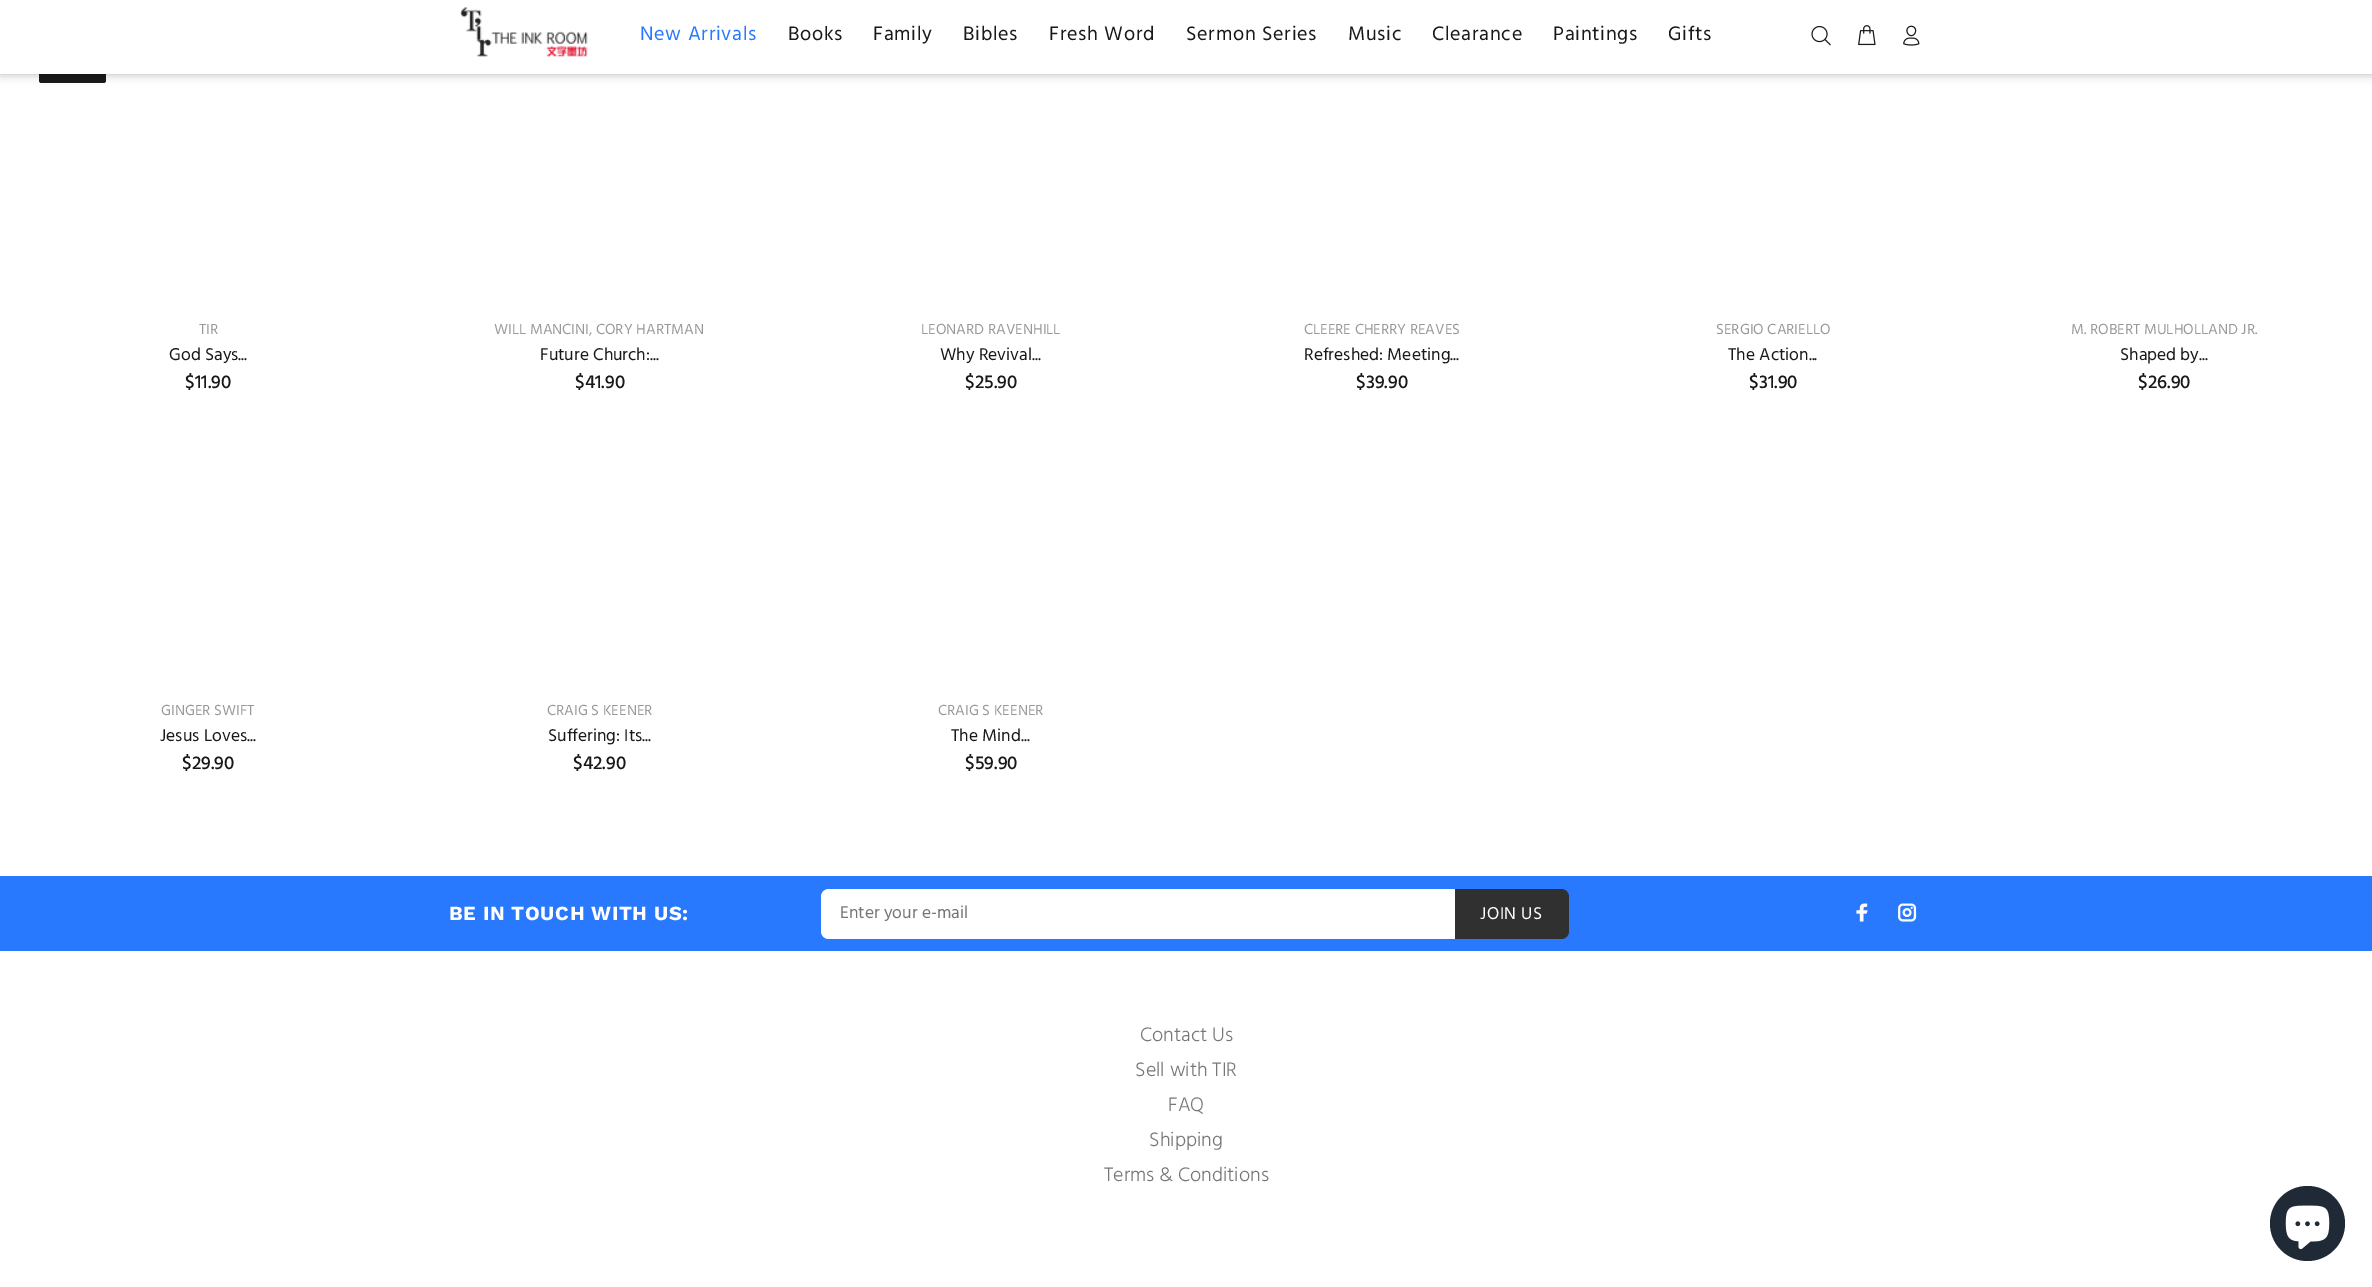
%!PS
<< /PageSize [2372 1287] /PageUsesTransparency true >> setpagedevice
/m/moveto load def
/l/rlineto load def
/c/rcurveto load def
/z/closepath load def
/f/fill load def
/C { dup -16 bitshift 255 div exch dup -8 bitshift 255 and 255 div exch 255 and 255 div setrgbcolor } def
/F { [ exch dup neg 0 0 3 -1 roll 0 0 ] selectfont } def
/T { moveto show } def
/R { rectfill } def
/A { dup .setfillconstantalpha .setstrokeconstantalpha } def
/O { newpath 0 360 arc closepath } def
/Q { 5 dict begin { /r /h /w /y /x } { exch def } forall
  x r add y moveto x w add y 2 copy h add r arct x w add y h add x 1 index r arct
  x y h add x y r arct x y 2 copy exch w add exch r arct closepath end } def
/S { 12 dict begin { /a /b /q /h /w /y /x } { exch def } forall gsave /was 0 def
  9 -2 -9 { dup b mul 4 div /e exch def 1 sub .425 mul 2.718 exch exp 1 add a .99 .min exch div /now exch def
    1 1 now sub 1 was sub div sub A /was now def
    w h .min e 2 mul add 0 gt { x e sub y e sub w e 2 mul add h e 2 mul add
      q e add b .6 mul add w h .min 2 div e add .min 0 .max Q fill } if } for grestore end } def
/I { 5 dict begin { /h /w /y /x /name } { exch def } forall
  gsave x y translate w h scale
  w h 8 [w 0 0 h 0 0] name (r) file false 3 colorimage grestore end } def
0 .pushpdf14devicefilter
0 1287 translate 1 -1 scale
4 setmiterlimit
16#FFFFFF C
0 0 2372 1287 R
16#191919 C
39 61 67 22 2.5 Q f
16#000000 C
0 0 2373 74 0 5 .3 S
16#FFFFFF C
0 0 2372 74 R
(1.rgb) 460 7 128 50 I
/Hind-Regular 20 F
16#2879FE C
640 40 m .75 0 (New Arrivals) ashow
16#191919 C
788 40 m .75 0 (Books) ashow
873 40 m .75 0 (Family) ashow
963 40 m .75 0 (Bibles) ashow
1049 40 m .75 0 (Fresh Word) ashow
1186 40 m .75 0 (Sermon Series) ashow
1348 40 m .75 0 (Music) ashow
1432 40 m .75 0 (Clearance) ashow
1553 40 m .75 0 (Paintings) ashow
1668 40 m .75 0 (Gifts) ashow
(2.rgb) 1811 25 20 21 I
(3.rgb) 1858 25 18 21 I
(4.rgb) 1903 25 17 21 I
/Hind-Regular 15 F
16#999999 C
(TIR) 199 334 T
/Hind-Regular 17.5 F
16#191919 C
(God Says...) 169 360 T
/Hind-Medium 19 F
($11.90) 185 388 T
/Hind-Regular 15 F
16#999999 C
(WILL MANCINI, CORY HARTMAN) 494 334 T
/Hind-Regular 17.5 F
16#191919 C
(Future Church:...) 540 360 T
/Hind-Medium 19 F
($41.90) 575 388 T
/Hind-Regular 15 F
16#999999 C
(LEONARD RAVENHILL) 921 334 T
/Hind-Regular 17.5 F
16#191919 C
(Why Revival...) 940 360 T
/Hind-Medium 19 F
($25.90) 965 388 T
/Hind-Regular 15 F
16#999999 C
(CLEERE CHERRY REAVES) 1304 334 T
/Hind-Regular 17.5 F
16#191919 C
(Refreshed: Meeting...) 1304 360 T
/Hind-Medium 19 F
($39.90) 1356 388 T
/Hind-Regular 15 F
16#999999 C
(SERGIO CARIELLO) 1716 334 T
/Hind-Regular 17.5 F
16#191919 C
(The Action...) 1728 360 T
/Hind-Medium 19 F
($31.90) 1749 388 T
/Hind-Regular 15 F
16#999999 C
(M. ROBERT MULHOLLAND JR.) 2071 334 T
/Hind-Regular 17.5 F
16#191919 C
(Shaped by...) 2120 360 T
/Hind-Medium 19 F
($26.90) 2138 388 T
/Hind-Regular 15 F
16#999999 C
(GINGER SWIFT) 161 715 T
/Hind-Regular 17.5 F
16#191919 C
(Jesus Loves...) 160 741 T
/Hind-Medium 19 F
($29.90) 182 769 T
/Hind-Regular 15 F
16#999999 C
(CRAIG S KEENER) 547 715 T
/Hind-Regular 17.5 F
16#191919 C
(Suffering: Its...) 548 741 T
/Hind-Medium 19 F
($42.90) 573 769 T
/Hind-Regular 15 F
16#999999 C
(CRAIG S KEENER) 938 715 T
/Hind-Regular 17.5 F
16#191919 C
(The Mind...) 951 741 T
/Hind-Medium 19 F
($59.90) 965 769 T
16#2879FE C
0 876 2372 75 R
/WorkSans-Bold 20 F
16#FFFFFF C
449 920 m .6 0 (BE IN TOUCH WITH US:) ashow
829 889 m 626 0 l 0 50 l -626 0 l -4.5 0 -8 -3.5 -8 -8 c 0 -34 l 0 -4.5 3.5 -8 8 -8 c z f
/Hind-Regular 17.5 F
16#777777 C
(Enter your e-mail) 840 918 T
16#303030 C
1455 889 m 106 0 l 4.5 0 8 3.5 8 8 c 0 34 l 0 4.5 -3.5 8 -8 8 c -106 0 l z f
16#FFFFFF C
1480 919 m .5 0 (JOIN US) ashow
(5.rgb) 1856 903 12 19 I
(6.rgb) 1898 903 19 19 I
/Hind-Light 20 F
16#777777 C
(Contact Us) 1140 1041 T
(Sell with TIR) 1135 1076 T
(FAQ) 1168 1111 T
(Shipping) 1149 1146 T
(Terms & Conditions) 1104 1181 T
16#202A36 C
2307.5 1223.5 37.5 O f
(7.rgb) 2285 1205 45 45 I
.poppdf14devicefilter showpage
